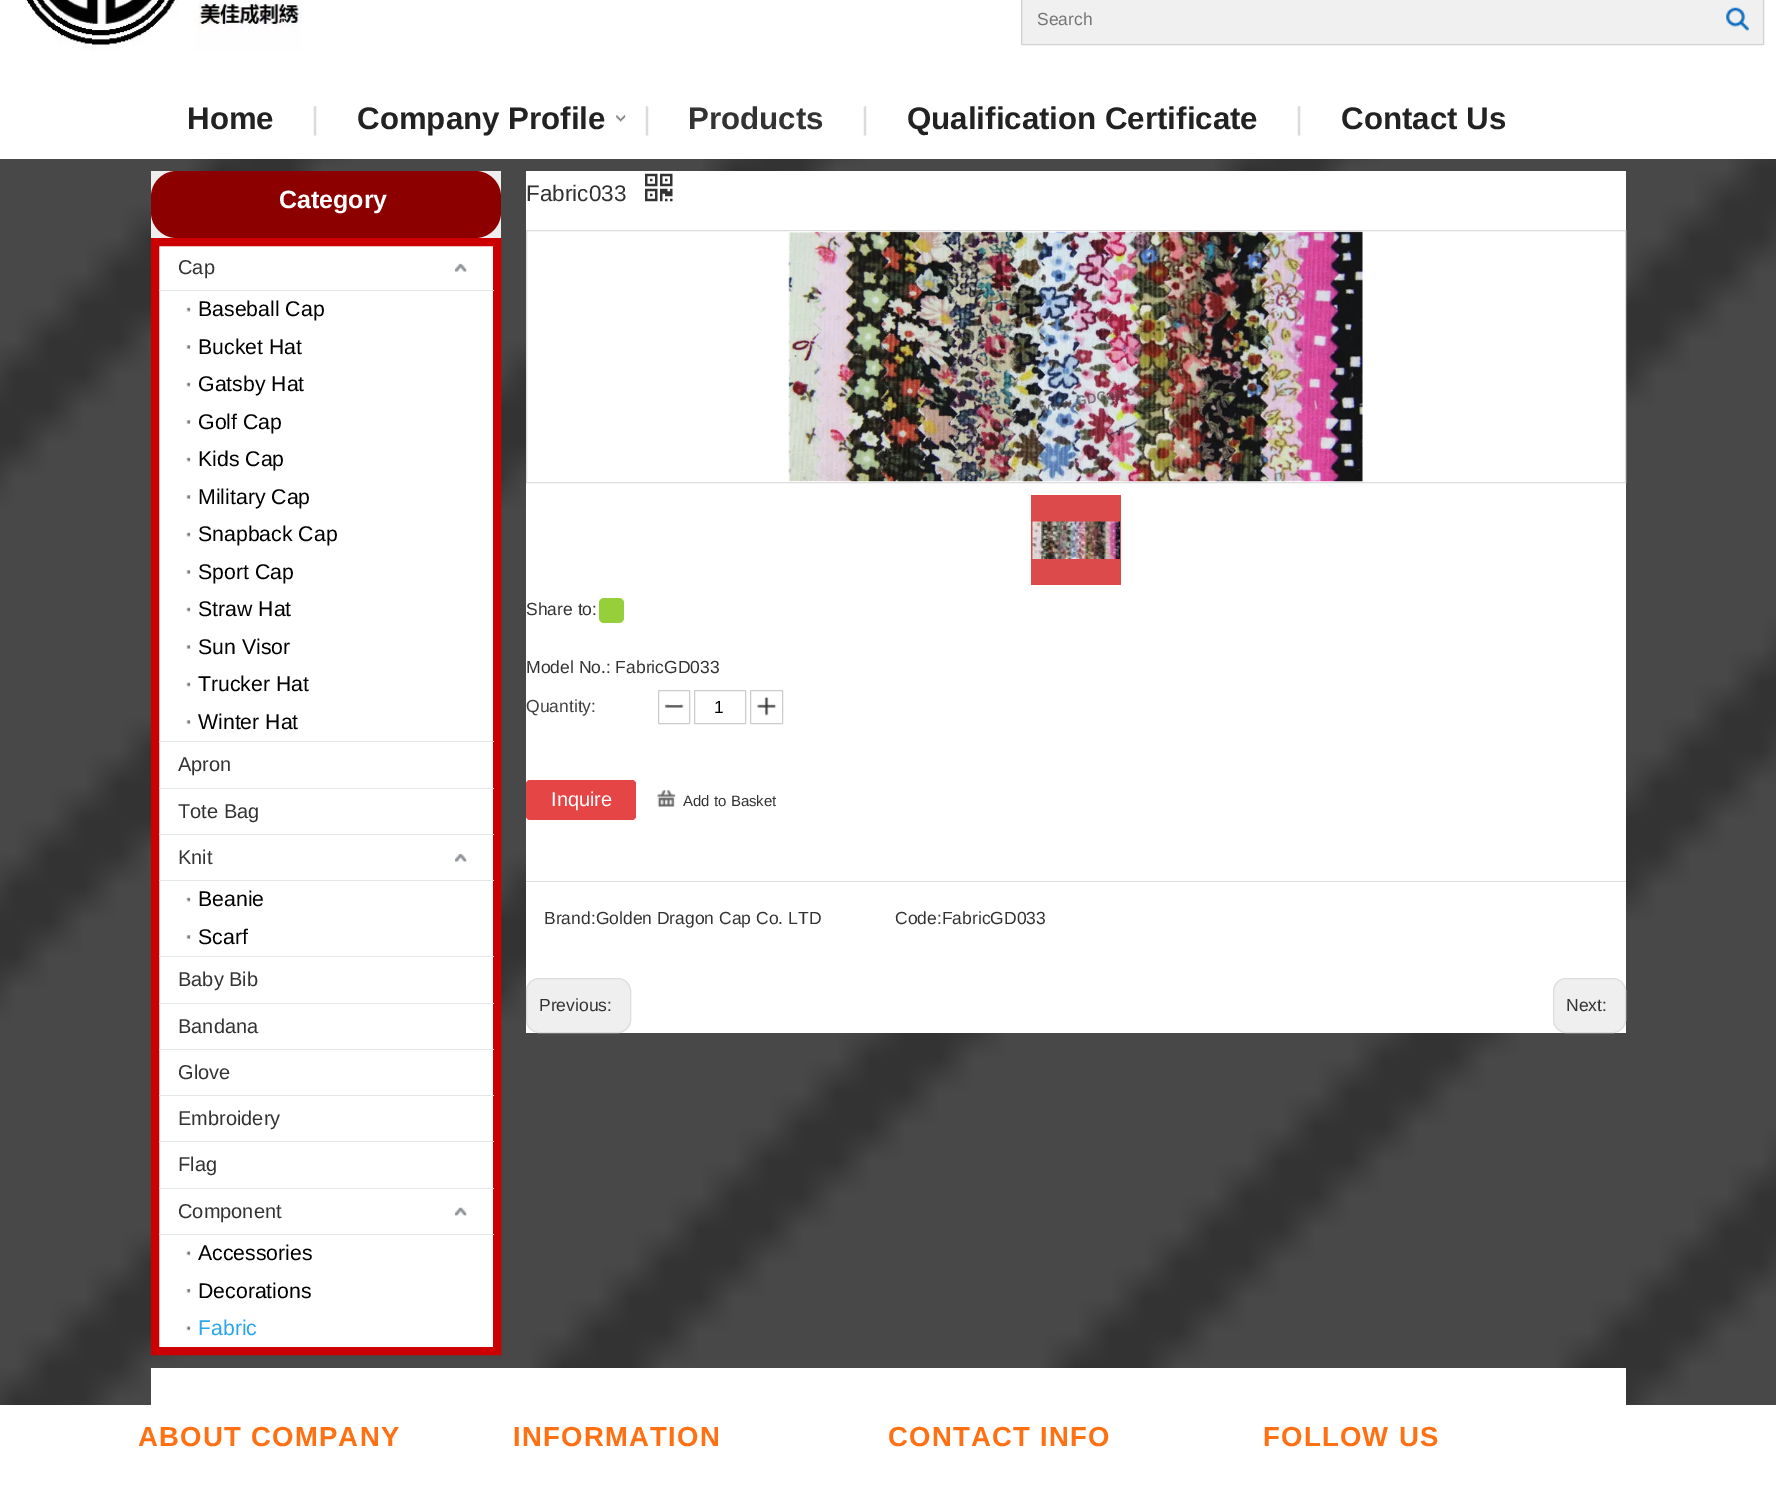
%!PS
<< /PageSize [1776 1488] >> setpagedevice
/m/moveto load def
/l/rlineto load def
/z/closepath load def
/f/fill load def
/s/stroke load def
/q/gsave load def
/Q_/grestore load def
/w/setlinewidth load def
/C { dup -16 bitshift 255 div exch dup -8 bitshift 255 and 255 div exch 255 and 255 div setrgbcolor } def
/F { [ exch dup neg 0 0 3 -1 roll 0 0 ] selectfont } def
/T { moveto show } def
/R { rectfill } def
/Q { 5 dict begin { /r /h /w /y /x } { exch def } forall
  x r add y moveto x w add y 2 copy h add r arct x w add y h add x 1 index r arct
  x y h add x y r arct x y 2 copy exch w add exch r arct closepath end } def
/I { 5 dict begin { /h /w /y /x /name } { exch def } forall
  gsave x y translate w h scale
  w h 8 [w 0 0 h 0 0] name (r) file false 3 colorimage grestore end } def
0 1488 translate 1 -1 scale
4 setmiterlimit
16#333333 C
0 0 1776 1488 R
(1.rgb) 0 159 1776 1246 I
16#FFFFFF C
0 0 1776 159 R
(2.rgb) 25 0 277 51 I
16#F0F0F0 C
1021.5 -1.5 742 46 .5 Q q f Q_
16#D1D1D1 C
s
/LiberationSans-Regular 17.5 F
16#757575 C
(Search) 1037 25 T
(3.rgb) 1726 7 23 24 I
/LiberationSans-Bold 31.25 F
16#222222 C
(Home) 187 129 T
/LiberationSans-Regular 31.25 F
16#DBDBDB C
(|) 311 129 T
(4.rgb) 616 115 10 7 I
/LiberationSans-Bold 31.25 F
16#222222 C
(Company Profile) 357 129 T
/LiberationSans-Regular 31.25 F
16#DBDBDB C
(|) 643 129 T
/LiberationSans-Bold 31.25 F
16#333333 C
(Products) 688 129 T
/LiberationSans-Regular 31.25 F
16#DBDBDB C
(|) 861 129 T
/LiberationSans-Bold 31.25 F
16#222222 C
(Qualification Certificate) 907 129 T
/LiberationSans-Regular 31.25 F
16#DBDBDB C
(|) 1295 129 T
/LiberationSans-Bold 31.25 F
16#222222 C
(Contact Us) 1341 129 T
16#EEEEEE C
151 171 350 67 R
16#8C0000 C
151 171 350 67 26 Q f
/LiberationSans-Bold 25 F
16#FFFFFF C
(Category) 279 208 T
155 242 m 342 0 l 0 1109 l -342 0 l z q f Q_
16#CC0000 C
8 w
s
16#E7E7E7 C
159 290 335 1 R
/LiberationSans-Regular 20 F
16#333333 C
(Cap) 178 274 T
(5.rgb) 455 263 12 9 I
(6.rgb) 186 307 5 5 I
/LiberationSans-Regular 21.25 F
16#000000 C
(Baseball Cap) 198 316 T
(7.rgb) 186 345 5 4 I
(Bucket Hat) 198 354 T
(6.rgb) 186 382 5 5 I
(Gatsby Hat) 198 391 T
(7.rgb) 186 420 5 4 I
(Golf Cap) 198 429 T
(6.rgb) 186 457 5 5 I
(Kids Cap) 198 466 T
(7.rgb) 186 495 5 4 I
(Military Cap) 198 504 T
(6.rgb) 186 532 5 5 I
(Snapback Cap) 198 541 T
(7.rgb) 186 570 5 4 I
(Sport Cap) 198 579 T
(6.rgb) 186 607 5 5 I
(Straw Hat) 198 616 T
(7.rgb) 186 645 5 4 I
(Sun Visor) 198 654 T
(6.rgb) 186 682 5 5 I
(Trucker Hat) 198 691 T
(7.rgb) 186 720 5 4 I
(Winter Hat) 198 729 T
16#E7E7E7 C
159 741 335 1 R
/LiberationSans-Regular 20 F
16#333333 C
(Apron) 178 771 T
16#E7E7E7 C
159 788 335 1 R
16#333333 C
(Tote Bag) 178 818 T
16#E7E7E7 C
159 834 335 1 R
159 880 335 1 R
16#333333 C
(Knit) 178 864 T
(5.rgb) 455 853 12 9 I
(6.rgb) 186 897 5 5 I
/LiberationSans-Regular 21.25 F
16#000000 C
(Beanie) 198 906 T
(7.rgb) 186 935 5 4 I
(Scarf) 198 944 T
16#E7E7E7 C
159 956 335 1 R
/LiberationSans-Regular 20 F
16#333333 C
(Baby Bib) 178 986 T
16#E7E7E7 C
159 1003 335 1 R
16#333333 C
(Bandana) 178 1033 T
16#E7E7E7 C
159 1049 335 1 R
16#333333 C
(Glove) 178 1079 T
16#E7E7E7 C
159 1095 335 1 R
16#333333 C
(Embroidery) 178 1125 T
16#E7E7E7 C
159 1141 335 1 R
16#333333 C
(Flag) 178 1171 T
16#E7E7E7 C
159 1188 335 1 R
16#333333 C
(Component) 178 1218 T
(8.rgb) 455 1207 12 9 I
16#E7E7E7 C
159 1234 335 1 R
(9.rgb) 186 1251 5 5 I
/LiberationSans-Regular 21.25 F
16#000000 C
(Accessories) 198 1260 T
(10.rgb) 186 1289 5 4 I
(Decorations) 198 1298 T
(9.rgb) 186 1326 5 5 I
16#2AA7EA C
(Fabric) 198 1335 T
16#FFFFFF C
526 171 1100 862 R
/LiberationSans-Regular 22.5 F
16#333333 C
(Fabric033) 526 201 T
(11.rgb) 645 173 28 29 I
16#DDDDDD C
1 w
526.5 230.5 1099 252 rectstroke
(12.rgb) 788 231 575 251 I
16#DD4A4B C
1031 495 90 90 R
(13.rgb) 1032 521 88 38 I
/LiberationSans-Regular 17.5 F
16#333333 C
(Share to:) 526 615 T
16#95D03A C
599 598 25 25 5 Q f
16#333333 C
(Model No.: FabricGD033) 526 673 T
16#424242 C
(Quantity:) 526 712 T
(14.rgb) 664 704 20 4 I
16#CCCCCC C
658.5 690.5 31 33 .5 Q s
694.5 690.5 51 33 rectstroke
16#000000 C
(1) 714 713 T
(15.rgb) 757 696 20 20 I
16#CCCCCC C
750.5 690.5 32 33 .5 Q s
16#E64545 C
526 780 110 40 4 Q f
/LiberationSans-Regular 20 F
16#FFFFFF C
(Inquire) 551 806 T
(16.rgb) 657 790 19 17 I
/LiberationSans-Regular 15 F
16#333333 C
(Add to Basket) 683 806 T
16#DFDFDF C
526 881 1100 1 R
/LiberationSans-Regular 17.5 F
16#333333 C
(Brand:Golden Dragon Cap Co. LTD) 544 924 T
(Code:FabricGD033) 895 924 T
16#EFEFEF C
526.5 978.5 104 54 12.5 Q q f Q_
16#DDDDDD C
s
16#333333 C
(Previous:) 539 1011 T
16#EFEFEF C
1553.5 978.5 72 54 12.5 Q q f Q_
16#DDDDDD C
s
16#333333 C
(Next:) 1566 1011 T
16#FFFFFF C
151 1368 1475 37 R
0 1405 1776 83 R
/LiberationSans-Bold 27.5 F
16#FE7012 C
138 1446 m 1.25 0 (ABOUT COMPANY) ashow
513 1446 m 1.25 0 (INFORMATION) ashow
888 1446 m 1.25 0 (CONTACT INFO) ashow
1263 1446 m 1.25 0 (FOLLOW US) ashow
showpage
